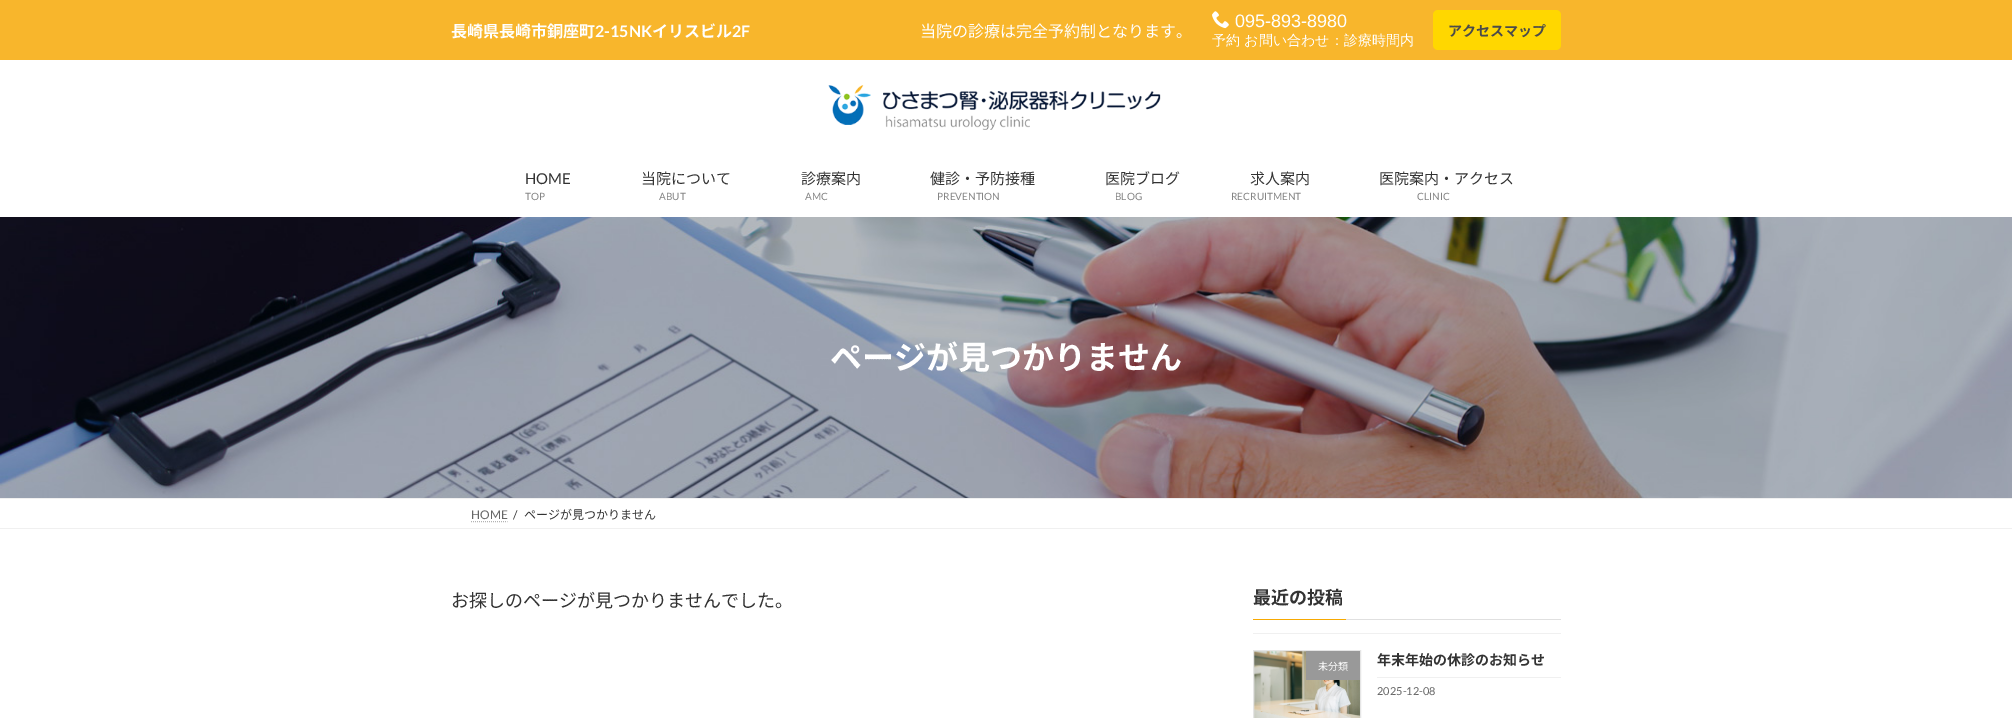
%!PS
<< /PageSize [2012 718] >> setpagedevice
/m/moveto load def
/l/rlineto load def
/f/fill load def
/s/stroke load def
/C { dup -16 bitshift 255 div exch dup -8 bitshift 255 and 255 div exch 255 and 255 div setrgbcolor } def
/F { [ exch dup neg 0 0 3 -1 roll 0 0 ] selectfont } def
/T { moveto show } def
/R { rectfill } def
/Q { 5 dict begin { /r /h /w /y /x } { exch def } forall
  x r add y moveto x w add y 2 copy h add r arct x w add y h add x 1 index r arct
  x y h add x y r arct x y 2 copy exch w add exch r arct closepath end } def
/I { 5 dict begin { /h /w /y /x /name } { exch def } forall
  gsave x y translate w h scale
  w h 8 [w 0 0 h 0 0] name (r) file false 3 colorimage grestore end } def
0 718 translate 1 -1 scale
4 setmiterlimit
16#FFFFFF C
0 0 2012 718 R
16#F8B62C C
0 0 2012 60 R
/NotoSansJP-Bold 16 F
16#FFFFFF C
(長崎県長崎市銅座町) 451 37 T
/Lato-Bold 16 F
(2-15NK) 595 37 T
/NotoSansJP-Bold 16 F
(イリスビル) 652 37 T
/Lato-Bold 16 F
(2F) 732 37 T
/NotoSansJP-Regular 16 F
(当院の診療は完全予約制となります。) 920 37 T
(1.rgb) 1212 11 17 18 I
/LiberationSans-Regular 18 F
(095-893-8980) 1235 27 T
/WenQuanYiZenHei-Medium 14 F
(予約 お問い合わせ：診療時間内) 1212 45 T
16#FFD700 C
1433 10 128 40 5 Q f
/NotoSansJP-Bold 14 F
16#4B4B4B C
(アクセスマップ) 1448 36 T
(2.rgb) 828 85 333 45 I
/Lato-Regular 15 F
16#333333 C
(HOME) 525 184 T
/Lato-Regular 10 F
16#858585 C
(TOP) 525 200 T
/NotoSansJP-Regular 15 F
16#333333 C
(当院について) 641 184 T
/Lato-Regular 10 F
16#858585 C
(ABUT) 659 200 T
/NotoSansJP-Regular 15 F
16#333333 C
(診療案内) 801 184 T
/Lato-Regular 10 F
16#858585 C
(AMC) 805 200 T
/NotoSansJP-Regular 15 F
16#333333 C
(健診・予防接種) 930 184 T
/Lato-Regular 10 F
16#858585 C
(PREVENTION) 937 200 T
/NotoSansJP-Regular 15 F
16#333333 C
(医院ブログ) 1105 184 T
/Lato-Regular 10 F
16#858585 C
(BLOG) 1115 200 T
/NotoSansJP-Regular 15 F
16#333333 C
(求人案内) 1250 184 T
/Lato-Regular 10 F
16#858585 C
(RECRUITMENT) 1231 200 T
/NotoSansJP-Regular 15 F
16#333333 C
(医院案内・アクセス) 1379 184 T
/Lato-Regular 10 F
16#858585 C
(CLINIC) 1417 200 T
(3.rgb) 0 217 2012 281 I
/NotoSansJP-Bold 32 F
16#FFFFFF C
(ページが見つかりません) 830 369 T
16#F0F0F0 C
0 498 2012 1 R
0 528 2012 1 R
/Lato-Regular 12 F
16#666666 C
(HOME) 471 519 T
16#B3B3B3 C
[1 1] 0 setdash
471 521.5 m 36.5 0 l s
16#333333 C
(/) 513 519 T
/NotoSansJP-Regular 12 F
(ページが見つかりません) 524 519 T
/NotoSansJP-Regular 18 F
(お探しのページが見つかりませんでした。) 451 607 T
16#E0E0E0 C
1346 619 215 1 R
/NotoSansJP-Bold 18 F
16#333333 C
(最近の投稿) 1253 604 T
16#F7A902 C
1253 619 93 1 R
16#F0F0F0 C
1253 633 308 1 R
(4.rgb) 1254 651 106 67 I
16#E5E5E5 C
[] 0 setdash
1253.5 650.5 107 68 rectstroke
16#999999 C
1306 651 54 29 R
/NotoSansJP-Regular 10 F
16#FFFFFF C
(未分類) 1318 670 T
16#F0F0F0 C
1377 677 184 1 R
/NotoSansJP-Bold 14 F
16#333333 C
(年末年始の休診のお知らせ) 1377 665 T
/Lato-Regular 11 F
16#666666 C
(2025-12-08) 1377 695 T
showpage
